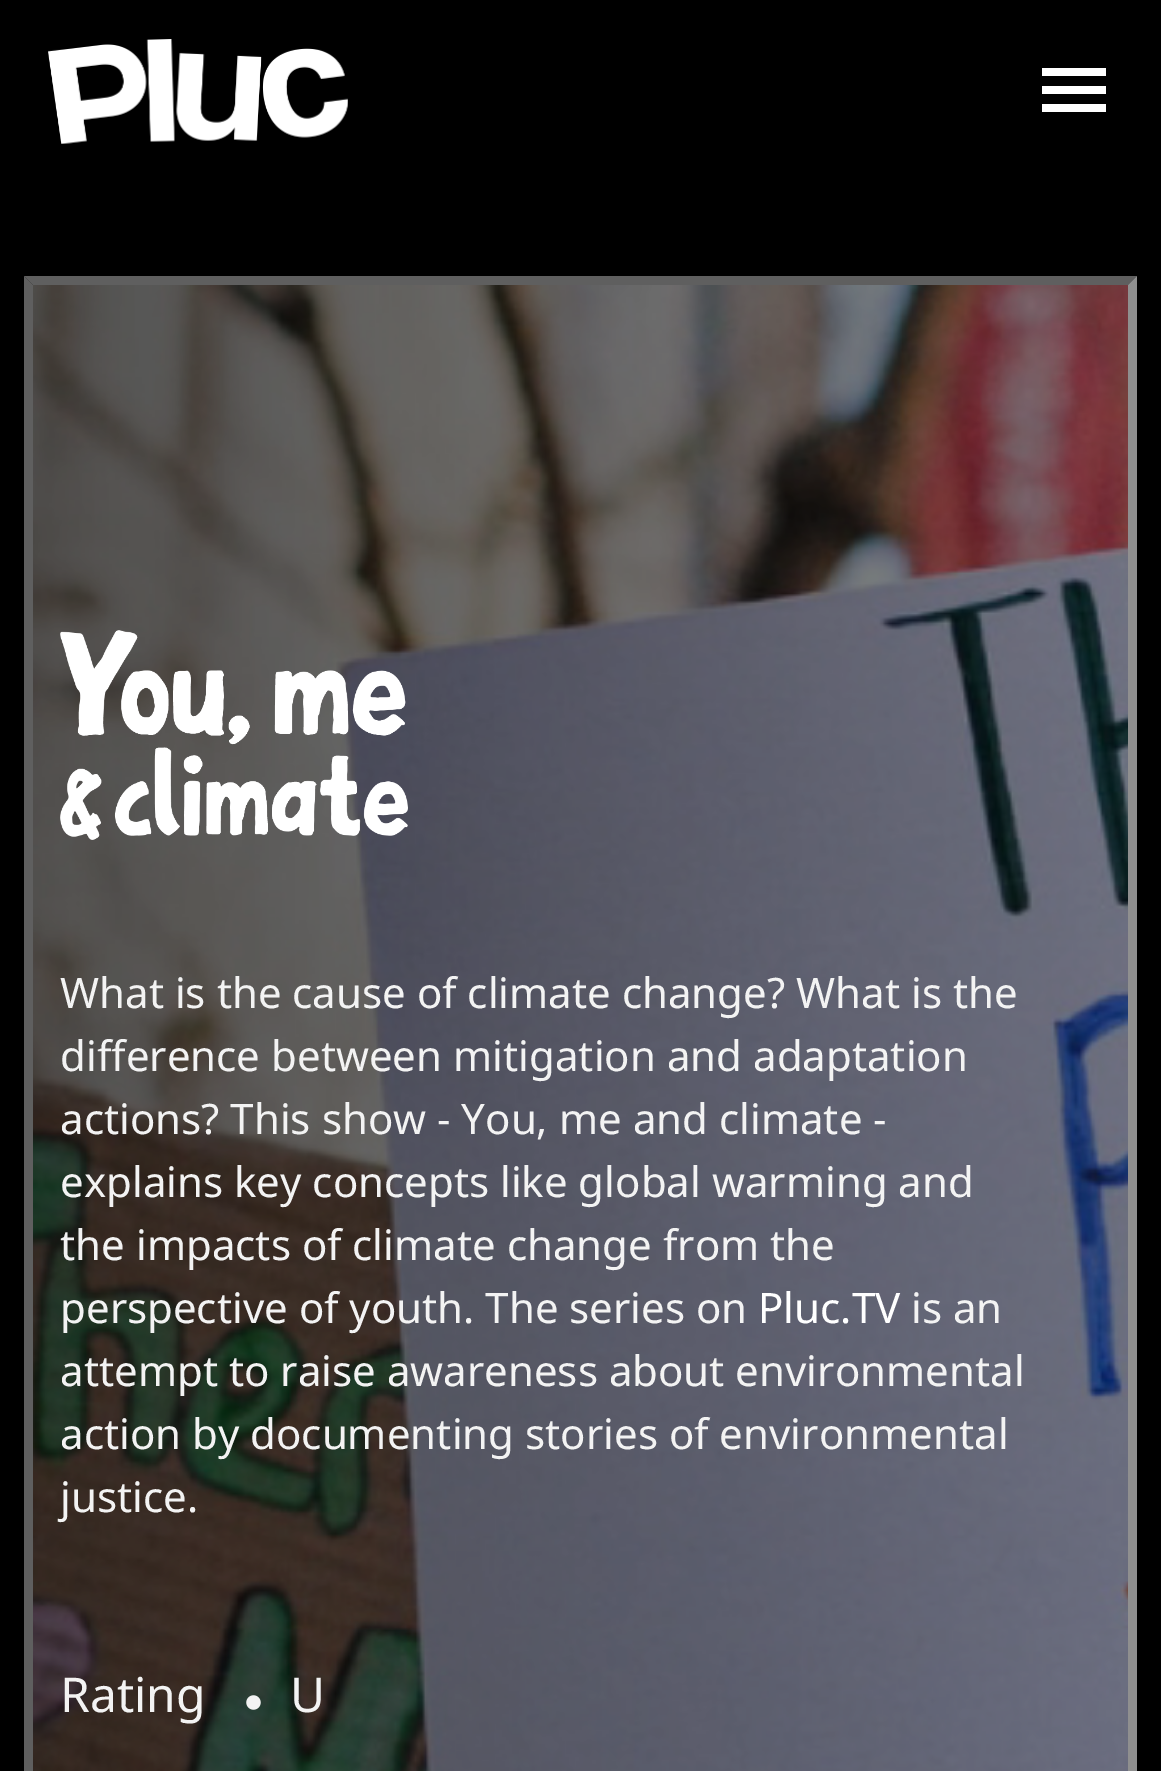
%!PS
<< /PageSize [1161 1771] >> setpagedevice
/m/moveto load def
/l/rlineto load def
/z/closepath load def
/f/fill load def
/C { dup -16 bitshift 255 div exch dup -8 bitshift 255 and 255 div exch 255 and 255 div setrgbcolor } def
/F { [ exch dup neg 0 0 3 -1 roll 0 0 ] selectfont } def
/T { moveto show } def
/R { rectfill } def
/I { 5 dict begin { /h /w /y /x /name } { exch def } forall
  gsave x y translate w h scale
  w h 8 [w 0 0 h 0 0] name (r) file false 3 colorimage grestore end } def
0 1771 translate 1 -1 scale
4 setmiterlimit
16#000000 C
0 0 1161 1771 R
(1.rgb) 48 39 300 105 I
16#FFFFFF C
1042 68 m 0 8 l 64 0 l 0 -8 l z 1042 86 m 0 8 l 64 0 l 0 -8 l z 1042 104 m 0 8 l 64 0 l 0 -8 l z f
16#5F5F5F C
24 276 m 1113 0 l -9 9 l -1095 0 l z f
16#8F8F8F C
1137 276 m 0 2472 l -9 -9 l 0 -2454 l z f
16#5F5F5F C
24 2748 m 0 -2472 l 9 9 l 0 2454 l z f
(2.rgb) 33 285 1095 1486 I
(3.rgb) 60 630 348 210 I
/NotoSans-Regular 42 F
16#F3F3F3 C
(What is the cause of climate change? What is the) 60 1008 T
(difference between mitigation and adaptation) 60 1071 T
(actions? This show - You, me and climate -) 60 1134 T
(explains key concepts like global warming and) 60 1197 T
(the impacts of climate change from the) 60 1260 T
(perspective of youth. The series on) 60 1323 T
16#FFFFFF C
(Pluc.TV) 758 1323 T
16#F3F3F3 C
(is an) 911 1323 T
(attempt to raise awareness about environmental) 60 1386 T
(action by documenting stories of environmental) 60 1449 T
(justice.) 60 1512 T
/NotoSans-Regular 48 F
(Rating) 60 1712 T
(4.rgb) 246 1695 15 15 I
(U) 290 1712 T
showpage
